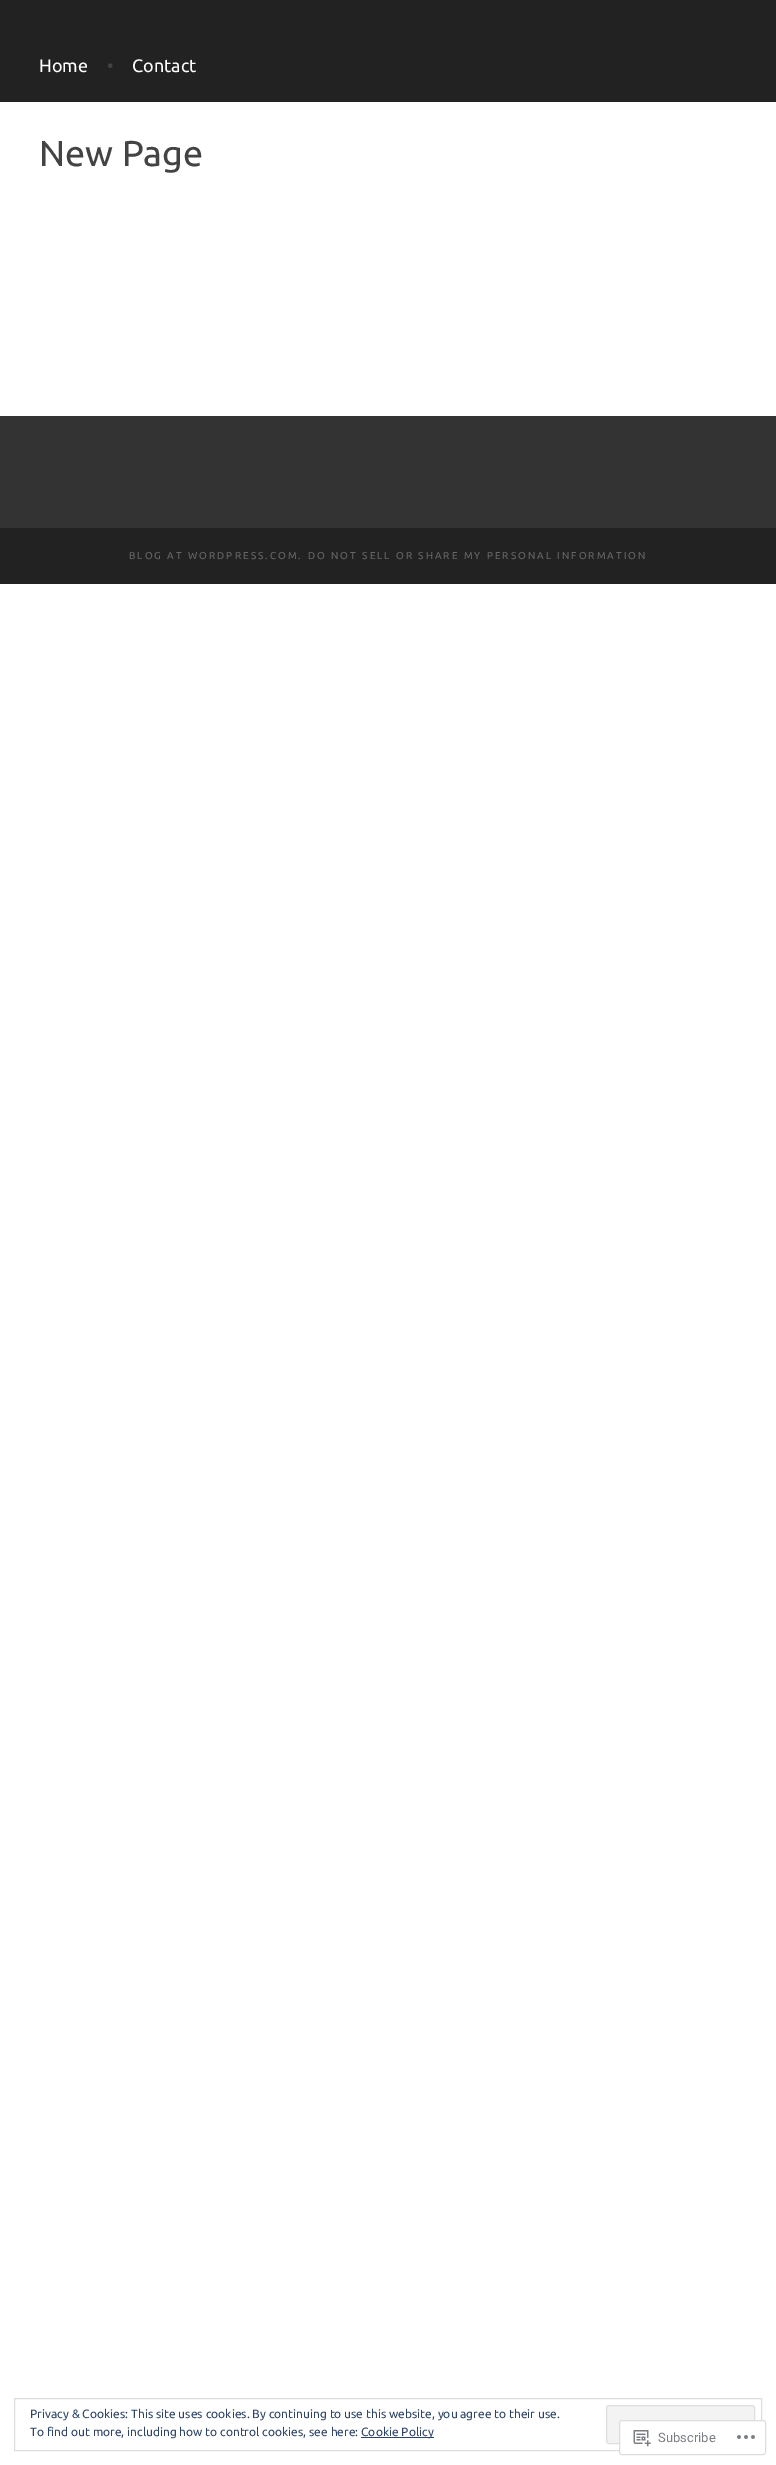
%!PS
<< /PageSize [776 2465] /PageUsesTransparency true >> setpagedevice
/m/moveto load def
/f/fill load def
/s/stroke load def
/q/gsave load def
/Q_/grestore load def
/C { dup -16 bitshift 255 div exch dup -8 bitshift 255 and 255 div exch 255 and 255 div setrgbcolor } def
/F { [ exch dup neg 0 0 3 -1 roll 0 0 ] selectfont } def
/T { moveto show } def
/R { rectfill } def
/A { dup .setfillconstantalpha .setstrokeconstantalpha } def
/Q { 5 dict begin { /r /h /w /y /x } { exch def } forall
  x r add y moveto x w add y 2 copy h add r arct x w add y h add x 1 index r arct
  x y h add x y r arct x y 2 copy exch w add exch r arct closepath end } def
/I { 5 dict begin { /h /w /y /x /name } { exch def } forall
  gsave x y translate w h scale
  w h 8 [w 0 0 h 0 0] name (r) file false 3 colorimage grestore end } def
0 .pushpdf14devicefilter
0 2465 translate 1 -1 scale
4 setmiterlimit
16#FFFFFF C
0 0 776 2465 R
16#222222 C
0 0 776 102 R
/Ubuntu-Regular 18 F
16#FFFFFF C
(Home) 39 72 T
16#434343 C
(•) 107 72 T
16#FFFFFF C
(Contact) 132 72 T
/Ubuntu-Regular 36 F
16#434343 C
(New Page) 39 166 T
16#333333 C
0 416 776 112 R
16#222222 C
0 528 776 56 R
/Ubuntu-Regular 10 F
16#666666 C
129 559 m 2 0 (BLOG AT WORDPRESS.COM.) ashow
308 559 m 2 0 (DO NOT SELL OR SHARE MY PERSONAL INFORMATION) ashow
16#DEDEDE C
14.5 2398.5 747 52 rectstroke
/Ubuntu-Regular 12 F
16#2E4467 C
(Privacy & Cookies: This site uses cookies. By continuing to use this website, you agree to their use.) 30 2418 T
16#F3F3F3 C
606.5 2405.5 148 38 2.5 Q q f Q_
16#DEDEDE C
s
16#2E4467 C
(To find out more, including how to control cookies, see here:) 30 2436 T
361 2437 73 1 R
(Cookie Policy) 361 2436 T
0.98 A
16#FFFFFF C
619 2420 147 35 3 Q f
16#DCDCDE C
619.5 2420.5 146 34 2.5 Q s
1 A
(1.rgb) 633 2430 18 17 I
/Roboto-Regular 13 F
16#7A7E84 C
(Subscribe) 658 2442 T
(2.rgb) 737 2435 18 4 I
.poppdf14devicefilter showpage
